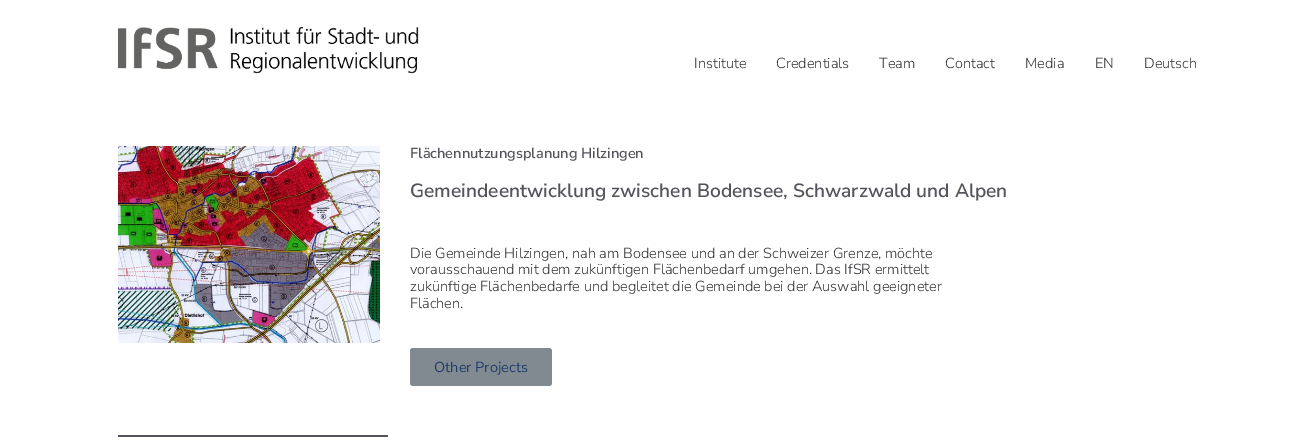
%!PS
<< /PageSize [1315 443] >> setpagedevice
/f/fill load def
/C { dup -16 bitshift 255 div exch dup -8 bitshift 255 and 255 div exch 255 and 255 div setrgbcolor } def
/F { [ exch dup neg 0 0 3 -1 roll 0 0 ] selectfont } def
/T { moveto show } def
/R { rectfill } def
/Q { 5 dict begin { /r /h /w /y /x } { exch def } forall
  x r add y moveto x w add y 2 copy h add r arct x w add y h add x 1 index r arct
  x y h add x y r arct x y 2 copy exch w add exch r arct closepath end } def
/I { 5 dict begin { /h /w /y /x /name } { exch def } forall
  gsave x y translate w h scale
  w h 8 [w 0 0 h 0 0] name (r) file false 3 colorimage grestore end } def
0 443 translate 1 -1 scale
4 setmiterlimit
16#FFFFFF C
0 0 1315 443 R
(1.rgb) 118 27 301 47 I
/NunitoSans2-ExtraLight 14.55 F
16#303034 C
(Institute) 694 68 T
(Credentials) 776 68 T
(Team) 879 68 T
(Contact) 945 68 T
(Media) 1025 68 T
(EN) 1095 68 T
(Deutsch) 1144 68 T
(2.rgb) 118 146 262 197 I
/NunitoSans-ExtraLight 14.55 F
16#54555C C
(Flächennutzungsplanung Hilzingen) 410 158 T
/NunitoSans-ExtraLight 19.2 F
(Gemeindeentwicklung zwischen Bodensee, Schwarzwald und Alpen) 410 197 T
/NunitoSans2-ExtraLight 14.55 F
16#303034 C
(Die Gemeinde Hilzingen, nah am Bodensee und an der Schweizer Grenze, möchte) 410 258 T
(vorausschauend mit dem zukünftigen Flächenbedarf umgehen. Das IfSR ermittelt) 410 274 T
(zukünftige Flächenbedarfe und begleitet die Gemeinde bei der Auswahl geeigneter) 410 291 T
(Flächen.) 410 308 T
16#818A91 C
410 348 142 38 3 Q f
/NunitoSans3-ExtraLight 14.55 F
16#233D6B C
(Other Projects) 434 372 T
16#54555C C
118 435 270 2 R
showpage
